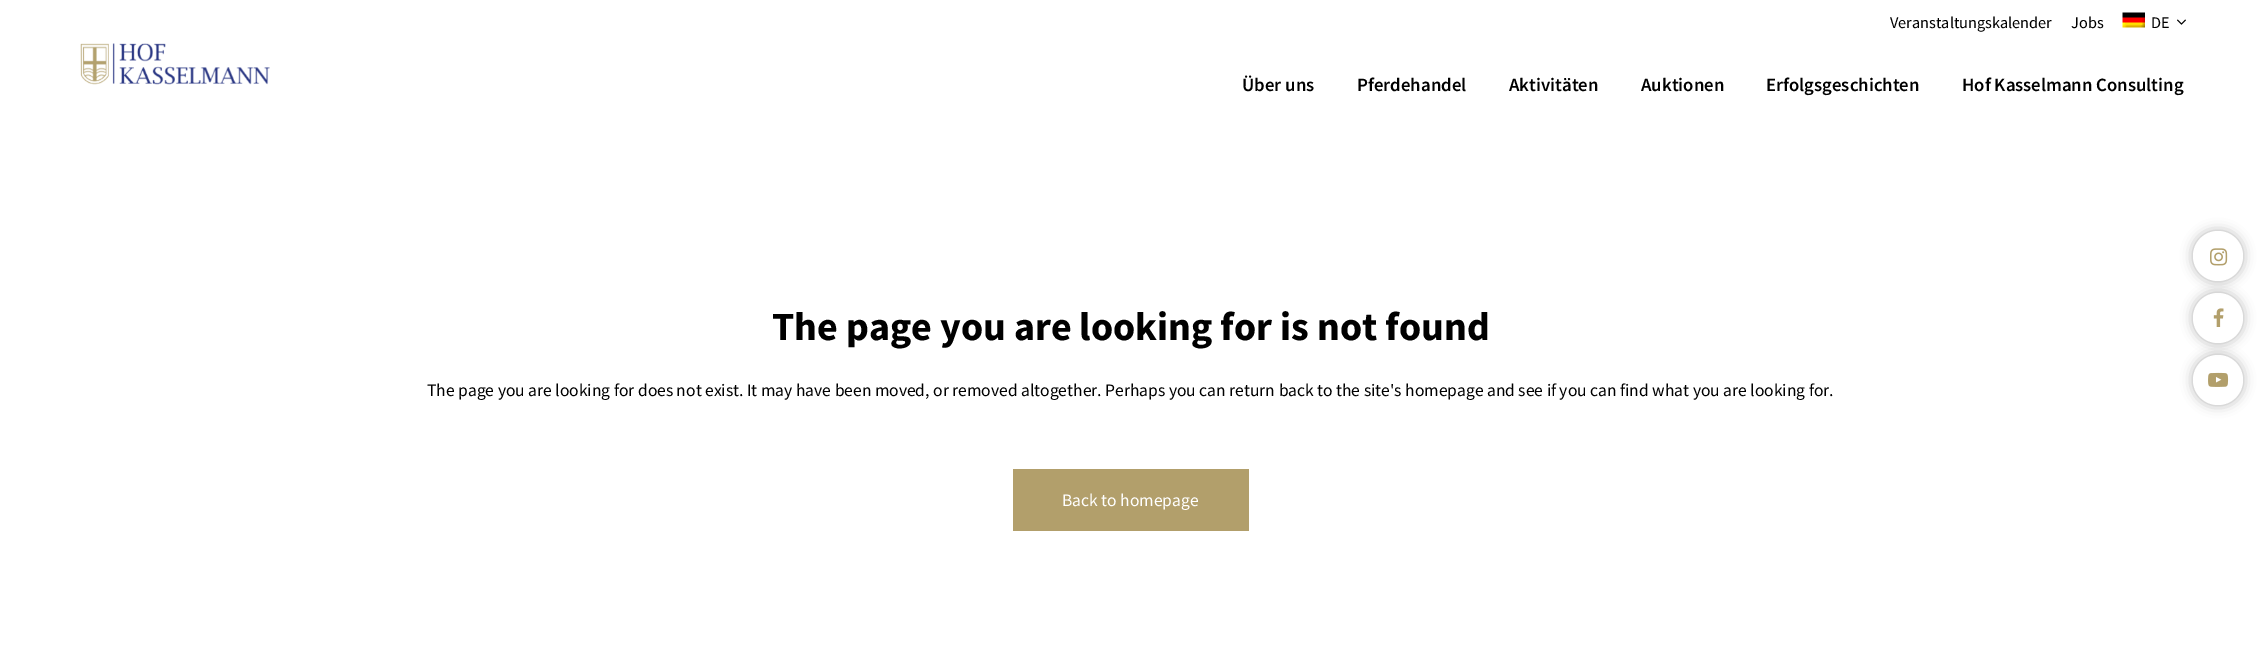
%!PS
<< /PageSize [2261 657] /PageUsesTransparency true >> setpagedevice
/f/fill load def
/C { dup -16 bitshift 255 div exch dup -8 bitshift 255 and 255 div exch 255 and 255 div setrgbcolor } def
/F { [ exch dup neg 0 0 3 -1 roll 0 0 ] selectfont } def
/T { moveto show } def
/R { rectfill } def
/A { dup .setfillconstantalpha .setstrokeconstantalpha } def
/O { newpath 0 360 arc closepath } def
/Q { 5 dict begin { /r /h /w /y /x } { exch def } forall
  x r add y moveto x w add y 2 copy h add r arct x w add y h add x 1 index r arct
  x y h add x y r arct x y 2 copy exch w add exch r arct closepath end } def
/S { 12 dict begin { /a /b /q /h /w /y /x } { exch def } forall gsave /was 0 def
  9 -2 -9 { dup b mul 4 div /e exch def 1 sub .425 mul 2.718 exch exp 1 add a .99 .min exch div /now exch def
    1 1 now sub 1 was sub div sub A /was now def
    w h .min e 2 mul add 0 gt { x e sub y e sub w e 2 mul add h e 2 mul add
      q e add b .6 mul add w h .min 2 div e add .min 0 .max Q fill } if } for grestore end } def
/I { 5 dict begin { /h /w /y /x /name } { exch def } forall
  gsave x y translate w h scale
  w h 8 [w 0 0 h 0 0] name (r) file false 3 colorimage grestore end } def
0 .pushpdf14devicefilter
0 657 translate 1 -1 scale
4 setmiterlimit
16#FFFFFF C
0 0 2261 657 R
/SourceSansPro-Regular 16.25 F
16#000000 C
(Veranstaltungskalender) 1890 28 T
(Jobs) 2071 28 T
(1.rgb) 2122 12 23 16 I
(DE) 2151 28 T
(2.rgb) 2177 19 9 6 I
(3.rgb) 80 43 190 42 I
/SourceSansPro-SemiBold 18.75 F
(Über uns) 1242 91 T
(Pferdehandel) 1357 91 T
(Aktivitäten) 1509 91 T
(Auktionen) 1641 91 T
(Erfolgsgeschichten) 1766 91 T
(Hof Kasselmann Consulting) 1962 91 T
/SourceSansPro-Bold 40 F
(The page you are looking for is not found) 772 340 T
/SourceSansPro-Regular 17.5 F
(The page you are looking for does not exist. It may have been moved, or removed altogether. Perhaps you can return back to the site's homepage and see if you can find what you are looking for.) 427 396 T
16#B29F6B C
1013 469 236 62 R
16#FFFFFF C
(Back to homepage) 1062 506 T
16#000000 C
2193 355 50 50 25 6 .3 S
16#FFFFFF C
2218 380 25 O f
16#000000 C
2193 293 50 50 25 6 .3 S
16#FFFFFF C
2218 318 25 O f
16#000000 C
2193 231 50 50 25 6 .3 S
16#FFFFFF C
2218 256 25 O f
(4.rgb) 2210 248 18 18 I
(5.rgb) 2213 308 11 19 I
(6.rgb) 2208 372 21 15 I
.poppdf14devicefilter showpage
